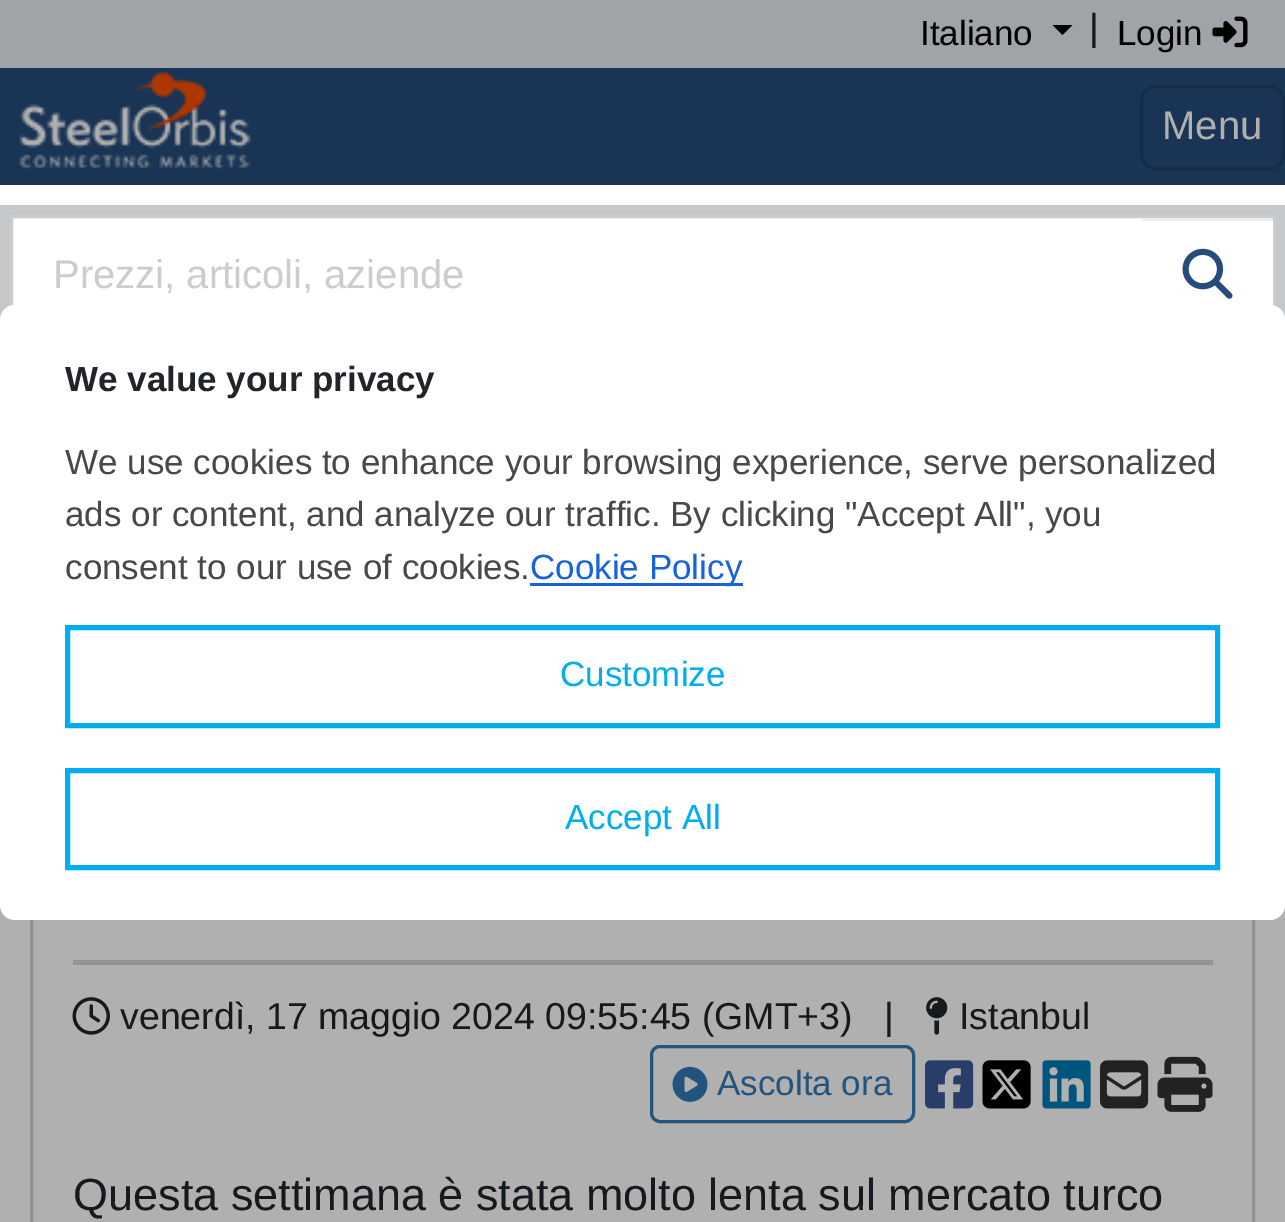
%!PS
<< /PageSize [1285 1222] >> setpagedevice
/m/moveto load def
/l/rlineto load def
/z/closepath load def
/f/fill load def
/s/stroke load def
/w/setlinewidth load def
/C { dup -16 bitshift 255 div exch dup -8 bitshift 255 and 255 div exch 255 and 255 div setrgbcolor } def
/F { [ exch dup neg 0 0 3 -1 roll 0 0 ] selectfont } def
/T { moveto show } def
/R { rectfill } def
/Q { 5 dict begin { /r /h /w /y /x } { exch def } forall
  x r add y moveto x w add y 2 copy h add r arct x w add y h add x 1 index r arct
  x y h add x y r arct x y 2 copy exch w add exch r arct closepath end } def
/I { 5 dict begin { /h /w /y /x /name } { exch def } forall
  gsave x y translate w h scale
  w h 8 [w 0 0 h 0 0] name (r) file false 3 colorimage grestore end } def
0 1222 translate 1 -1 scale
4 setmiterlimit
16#B0B0B0 C
0 0 1285 1222 R
16#A0A3A7 C
0 0 1285 68 R
/LiberationSans-Regular 35 F
16#000000 C
(Italiano) 920 45 T
1052.5 25 m 20 0 l -10 10 l z f
/LiberationSans-Regular 37.5 F
16#171A1C C
(|) 1089 40 T
/LiberationSans-Regular 35 F
16#000000 C
(Login) 1117 45 T
(1.rgb) 1212 16 36 32 I
16#1A3455 C
0 68 1285 117 R
(2.rgb) 19 71 232 98 I
16#162D48 C
3 w
1141.5 86.5 142 82 13.5 Q s
/LiberationSans-Regular 40 F
16#B0B0B0 C
(Menu) 1162 139 T
16#FFFFFF C
0 185 1285 121 R
16#C4C8CB C
10 w
5 210 1275 130 rectstroke
16#CCCCCC C
3 w
11.5 216.5 1262 117 rectstroke
(Prezzi, articoli, aziende) 53 288 T
16#FFFFFF C
1272 221 1 85 R
16#ECECEC C
1143 218 130 3 R
16#CCCCCC C
1275 215 1 92 R
(3.rgb) 1182 248 51 51 I
16#919191 C
31.5 659.5 1222 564 rectstroke
16#FFFFFF C
0 305 1285 615 15 Q f
/LiberationSans-Bold 35 F
16#212529 C
(We value your privacy) 65 391 T
/LiberationSans-Regular 35 F
16#484848 C
(We use cookies to enhance your browsing experience, serve personalized) 65 474 T
(ads or content, and analyze our traffic. By clicking "Accept All", you) 65 526 T
(consent to our use of cookies.) 65 579 T
16#1863DC C
530 583 213 3 R
(Cookie Policy) 530 579 T
16#00AEEF C
5 w
67.5 627.5 1150 98 rectstroke
(Customize) 560 686 T
67.5 770.5 1150 97 rectstroke
(Accept All) 565 829 T
16#949494 C
73 960 1140 5 R
(4.rgb) 72 997 38 38 I
/LiberationSans-Regular 37.5 F
16#171A1C C
(venerdì, 17 maggio 2024 09:55:45 \(GMT+3\)) 120 1029 T
(|) 884 1029 T
(5.rgb) 926 997 22 38 I
(Istanbul) 959 1029 T
16#23547E C
3 w
651.5 1046.5 262 75 8.5 Q s
(6.rgb) 672 1066 36 36 I
/LiberationSans-Regular 35 F
(Ascolta ora) 717 1095 T
(7.rgb) 925 1060 49 49 I
(8.rgb) 982 1060 49 49 I
(9.rgb) 1042 1060 49 49 I
(10.rgb) 1100 1060 49 49 I
(11.rgb) 1157 1056 56 56 I
/LiberationSans-Regular 45 F
16#171A1C C
(Questa settimana è stata molto lenta sul mercato turco) 73 1210 T
showpage
